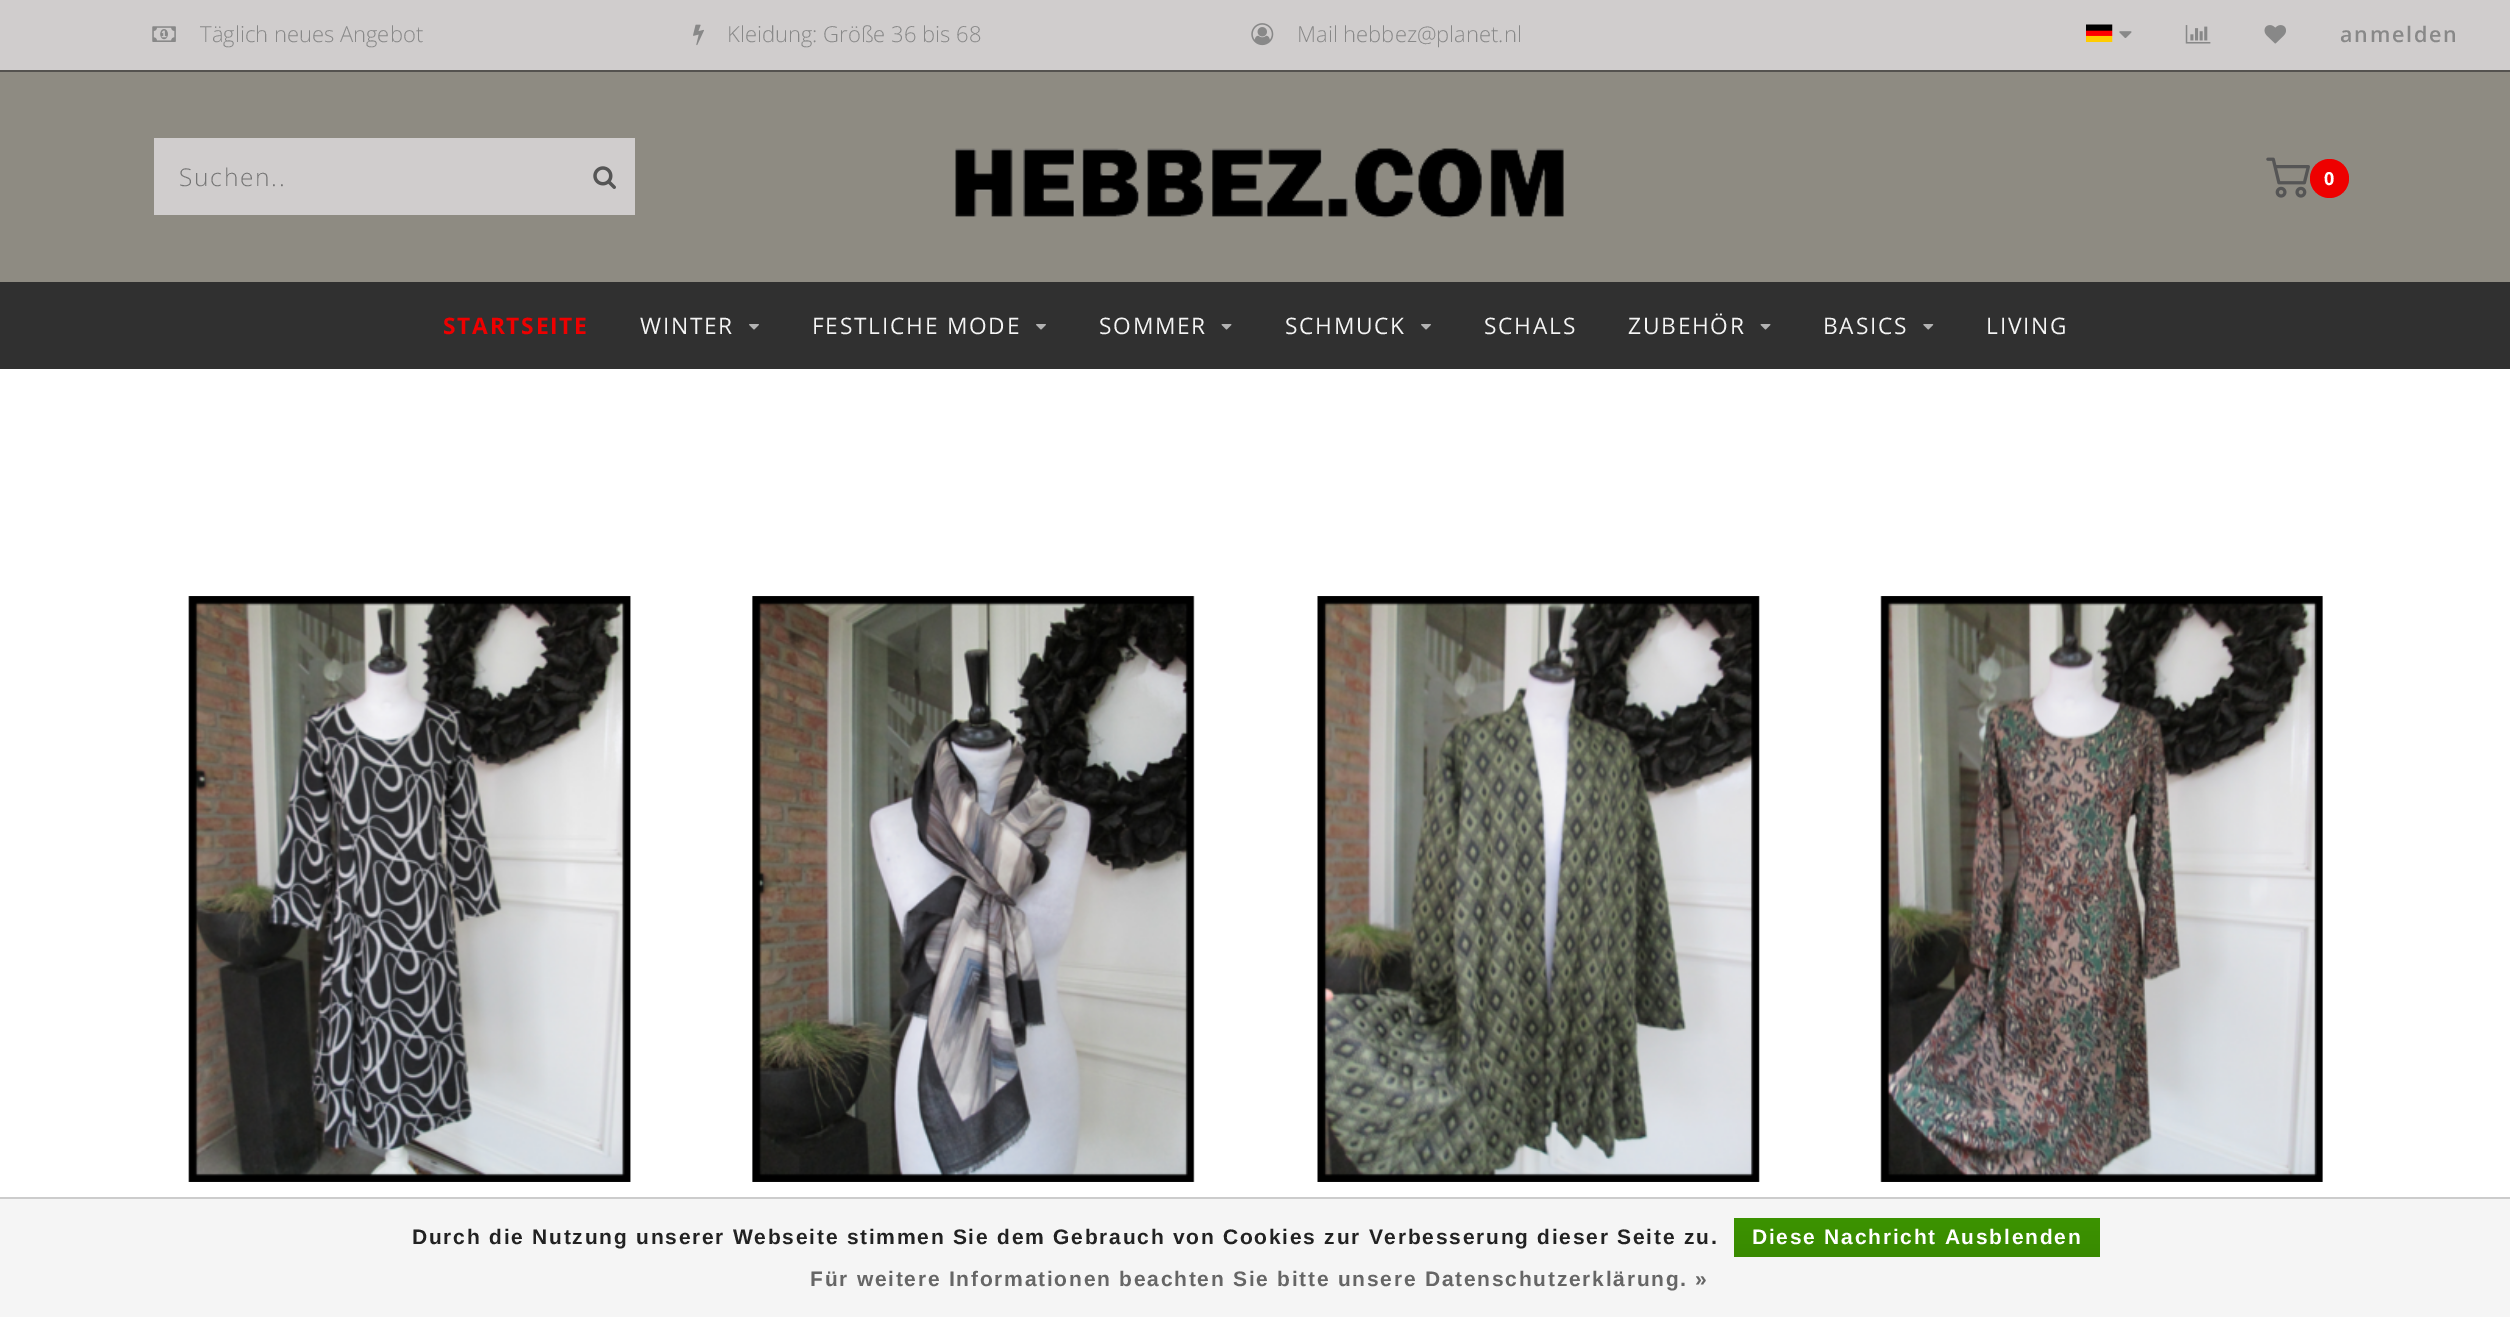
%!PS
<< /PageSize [2510 1317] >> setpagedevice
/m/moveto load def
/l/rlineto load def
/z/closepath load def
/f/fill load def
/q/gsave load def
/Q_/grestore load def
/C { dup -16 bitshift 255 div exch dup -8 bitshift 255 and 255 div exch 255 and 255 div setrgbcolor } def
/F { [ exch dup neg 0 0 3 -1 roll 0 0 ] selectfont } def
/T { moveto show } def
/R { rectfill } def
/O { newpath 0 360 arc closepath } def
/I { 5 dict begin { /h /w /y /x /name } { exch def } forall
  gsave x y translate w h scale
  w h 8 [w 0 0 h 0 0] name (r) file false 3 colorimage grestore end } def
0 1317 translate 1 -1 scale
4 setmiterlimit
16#FFFFFF C
0 0 2510 1317 R
16#D0CDCD C
0 0 2510 70 R
16#54524F C
0 70 2510 2 R
(1.rgb) 152 26 24 16 I
/OpenSans-Light 22 F
16#888888 C
(Täglich neues Angebot) 200 42 T
(2.rgb) 693 24 11 22 I
(Kleidung: Größe 36 bis 68) 727 42 T
(3.rgb) 1251 23 23 23 I
(Mail hebbez@planet.nl) 1297 42 T
(4.rgb) 2086 24 27 18 I
(5.rgb) 2119 31 13 7 I
(6.rgb) 2185 25 26 19 I
(7.rgb) 2264 25 22 19 I
/OpenSans-SemiBold 21.5 F
2340 42 m 1.75 0 (anmelden) ashow
16#8E8B82 C
0 72 2510 210 R
16#D0CDCD C
154 138 481 77 R
/OpenSans-Light 24.5 F
16#757575 C
179 186 m 1.75 0 (Suchen..) ashow
(8.rgb) 593 166 23 23 I
(9.rgb) 955 148 609 70 I
(10.rgb) 2266 157 44 41 I
16#EE0000 C
2329.5 178.5 19.5 O f
/OpenSans-Bold 18 F
16#FFFFFF C
2324 185 m 1.75 0 (0) ashow
16#303030 C
0 282 2510 87 R
/OpenSans-Bold 22.75 F
16#EE0000 C
443 334 m 1.75 0 (STARTSEITE) ashow
/OpenSans-Regular 22.75 F
16#F5F5F5 C
640 334 m 1.75 0 (WINTER) ashow
(11.rgb) 749 324 10 6 I
812 334 m 1.75 0 (FESTLICHE MODE) ashow
(11.rgb) 1036 324 10 6 I
1099 334 m 1.75 0 (SOMMER) ashow
(12.rgb) 1221 324 11 6 I
1285 334 m 1.75 0 (SCHMUCK) ashow
(11.rgb) 1421 324 10 6 I
1484 334 m 1.75 0 (SCHALS) ashow
1628 334 m 1.75 0 (ZUBEHÖR) ashow
(12.rgb) 1760 324 11 6 I
1823 334 m 1.75 0 (BASICS) ashow
(13.rgb) 1923 324 11 6 I
1986 334 m 1.75 0 (LIVING) ashow
(14.rgb) 188 596 443 586 I
(15.rgb) 752 596 443 586 I
(16.rgb) 1317 596 443 586 I
(17.rgb) 1880 596 443 586 I
0 1199 2510 118 R
16#CCCCCC C
0 1197 2510 2 R
/LiberationSans-Bold 21 F
16#222222 C
412 1244 m 1.75 0 (Durch die Nutzung unserer Webseite stimmen Sie dem Gebrauch von Cookies zur Verbesserung dieser Seite zu.) ashow
q 1734 1218 m 366 0 l 0 39 l -366 0 l z clip newpath
<< /ShadingType 2 /ColorSpace /DeviceRGB /Coords [1917 1218 1917 1257] /Extend [true true] /Function << /FunctionType 2 /Domain [0 1] /C0 [.235 .576 0] /C1 [.224 .541 0] /N 1 >> >> shfill Q_
16#FFFFFF C
1752 1244 m 1.75 0 (Diese Nachricht Ausblenden) ashow
16#666666 C
810 1286 m 1.75 0 (Für weitere Informationen beachten Sie bitte unsere Datenschutzerklärung. ») ashow
showpage
